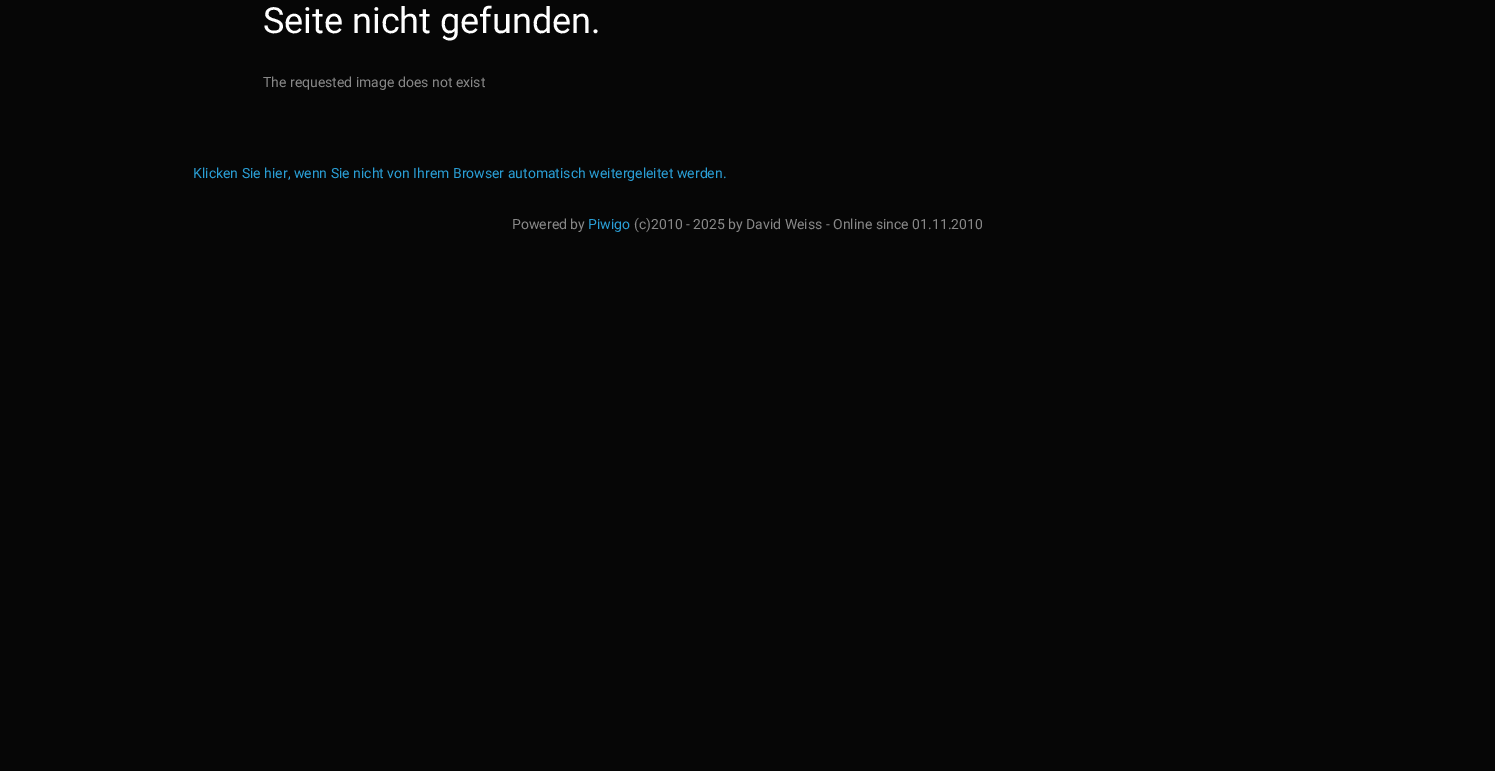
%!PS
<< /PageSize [1495 771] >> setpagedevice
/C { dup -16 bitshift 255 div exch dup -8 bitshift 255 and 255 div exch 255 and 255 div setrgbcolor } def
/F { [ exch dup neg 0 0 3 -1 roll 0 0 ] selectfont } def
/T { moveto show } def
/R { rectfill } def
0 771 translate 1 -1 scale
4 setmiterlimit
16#060606 C
0 0 1495 771 R
/Roboto-Regular 36 F
16#FFFFFF C
(Seite nicht gefunden.) 263 33 T
/Roboto-Regular 14 F
16#888888 C
(The requested image does not exist) 263 87 T
16#2A9FD6 C
(Klicken Sie hier, wenn Sie nicht von Ihrem Browser automatisch weitergeleitet werden.) 193 178 T
16#888888 C
(Powered by) 512 229 T
16#2A9FD6 C
(Piwigo) 588 229 T
16#888888 C
(\(c\)2010 - 2025 by David Weiss - Online since 01.11.2010) 634 229 T
showpage
